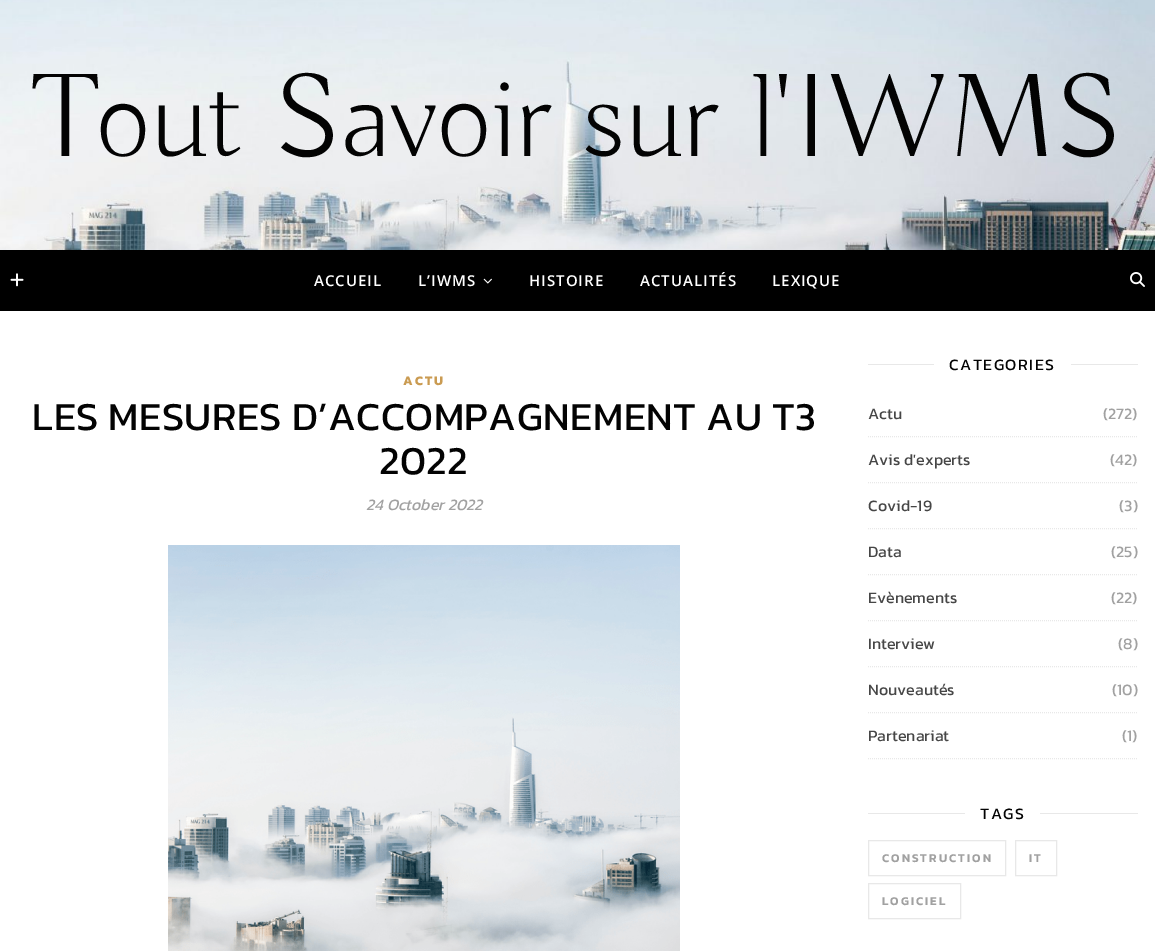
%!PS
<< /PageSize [1155 951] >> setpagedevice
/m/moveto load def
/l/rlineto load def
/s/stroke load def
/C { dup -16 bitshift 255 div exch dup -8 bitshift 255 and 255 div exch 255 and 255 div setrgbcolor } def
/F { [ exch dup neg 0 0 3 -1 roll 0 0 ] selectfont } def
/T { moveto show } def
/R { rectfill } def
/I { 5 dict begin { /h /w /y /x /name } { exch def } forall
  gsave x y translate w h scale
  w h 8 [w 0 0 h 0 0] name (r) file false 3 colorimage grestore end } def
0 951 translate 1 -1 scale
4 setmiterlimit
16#FFFFFF C
0 0 1155 951 R
(1.rgb) 0 0 1155 250 I
/Buda-Light 120 F
16#030303 C
34 156 m -1 0 (Tout Savoir sur l'IWMS) ashow
16#000000 C
0 250 1155 61 R
(2.rgb) 10 273 14 14 I
/OpenSans-SemiBold 15 F
16#FFFFFF C
314 286 m 1 0 (ACCUEIL) ashow
418 286 m 1 0 (L’IWMS) ashow
(3.rgb) 483 278 9 6 I
529 286 m 1 0 (HISTOIRE) ashow
640 286 m 1 0 (ACTUALITÉS) ashow
772 286 m 1 0 (LEXIQUE) ashow
(4.rgb) 1130 272 15 15 I
/Kanit-Bold 13 F
16#CA9B52 C
403 385 m 2 0 (ACTU) ashow
/Kanit-Regular 40 F
16#030303 C
32 430 m .5 0 (LES MESURES D’ACCOMPAGNEMENT AU T3) ashow
379 474 m .5 0 (2022) ashow
/Kanit-Italic 16 F
16#A1A1A1 C
(24 October 2022) 366 510 T
(5.rgb) 168 545 512 406 I
16#E8E8E8 C
868 364 66 1 R
/Kanit-Regular 16 F
16#030303 C
949 370 m 1.5 0 (CATEGORIES) ashow
16#E8E8E8 C
1071 364 67 1 R
[1 1] 0 setdash
868 436.5 m 270 0 l s
16#464646 C
(Actu) 868 419 T
16#A1A1A1 C
(\(272\)) 1103 419 T
16#E8E8E8 C
868 482.5 m 270 0 l s
16#464646 C
(Avis d'experts) 868 465 T
16#A1A1A1 C
(\(42\)) 1110 465 T
16#E8E8E8 C
868 528.5 m 270 0 l s
16#464646 C
(Covid-19) 868 511 T
16#A1A1A1 C
(\(3\)) 1119 511 T
16#E8E8E8 C
868 574.5 m 270 0 l s
16#464646 C
(Data) 868 557 T
16#A1A1A1 C
(\(25\)) 1111 557 T
16#E8E8E8 C
868 620.5 m 270 0 l s
16#464646 C
(Evènements) 868 603 T
16#A1A1A1 C
(\(22\)) 1111 603 T
16#E8E8E8 C
868 666.5 m 270 0 l s
16#464646 C
(Interview) 868 649 T
16#A1A1A1 C
(\(8\)) 1118 649 T
16#E8E8E8 C
868 712.5 m 270 0 l s
16#464646 C
(Nouveautés) 868 695 T
16#A1A1A1 C
(\(10\)) 1112 695 T
16#E8E8E8 C
868 758.5 m 270 0 l s
16#464646 C
(Partenariat) 868 741 T
16#A1A1A1 C
(\(1\)) 1122 741 T
16#E8E8E8 C
868 813 97 1 R
16#030303 C
980 819 m 1.5 0 (TAGS) ashow
16#E8E8E8 C
1040 813 98 1 R
[] 0 setdash
868.5 840.5 137 35 rectstroke
/Kanit-SemiBold 12 F
16#A1A1A1 C
882 862 m 2 0 (CONSTRUCTION) ashow
16#E8E8E8 C
1015.5 840.5 41 35 rectstroke
16#A1A1A1 C
1029 862 m 2 0 (IT) ashow
16#E8E8E8 C
868.5 883.5 92 35 rectstroke
16#A1A1A1 C
882 905 m 2 0 (LOGICIEL) ashow
showpage
